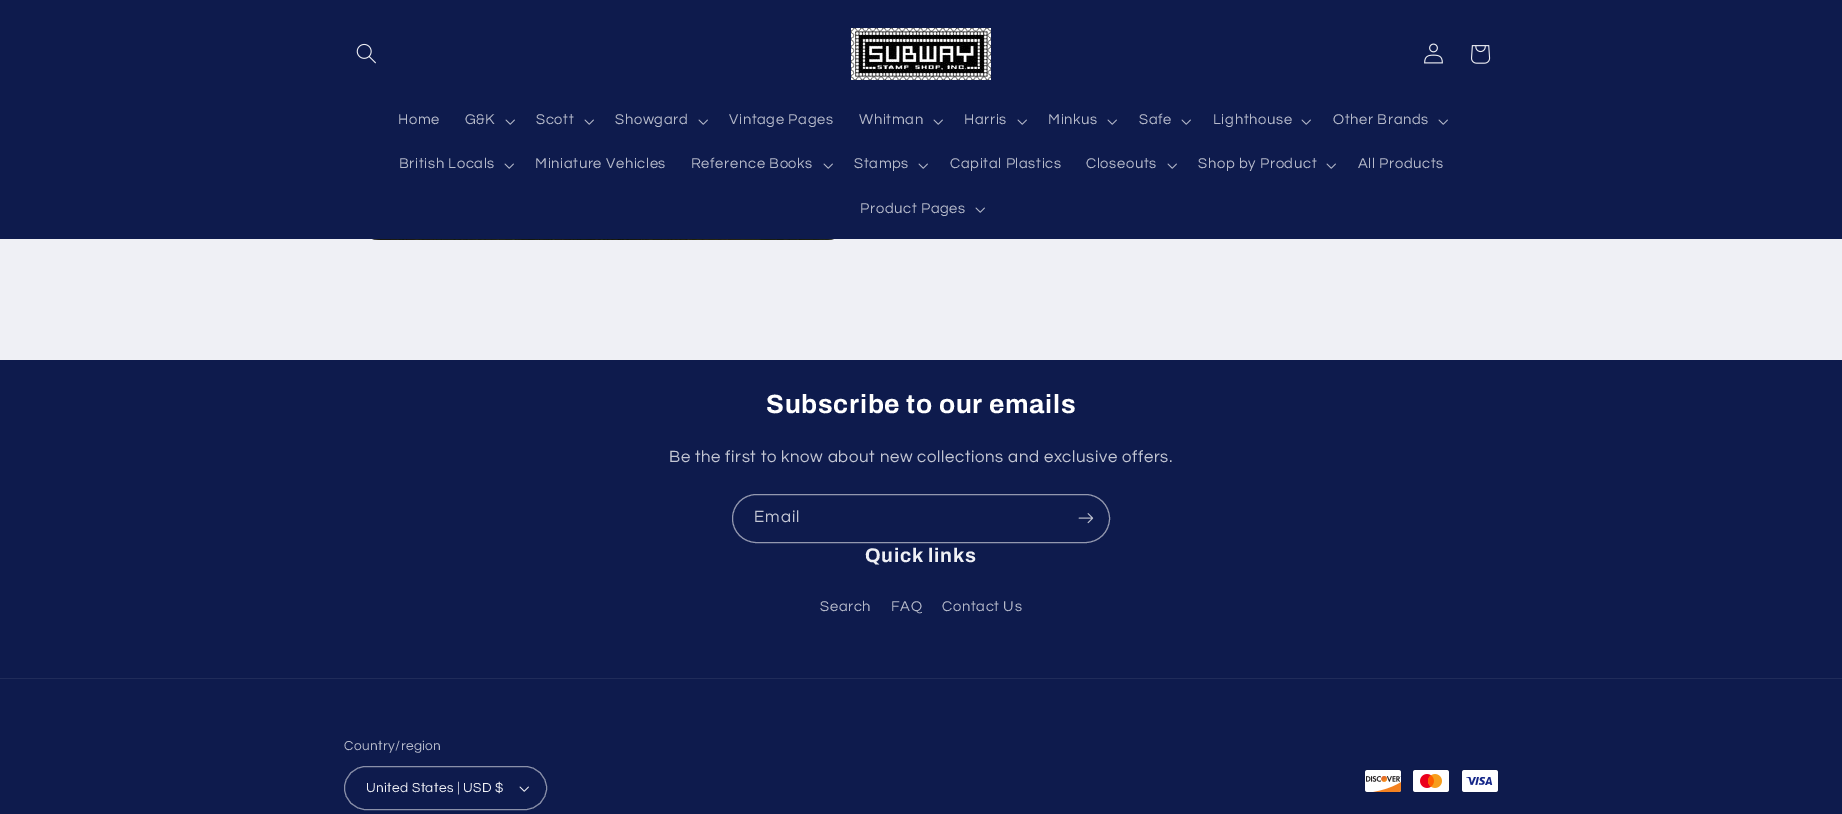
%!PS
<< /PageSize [1842 814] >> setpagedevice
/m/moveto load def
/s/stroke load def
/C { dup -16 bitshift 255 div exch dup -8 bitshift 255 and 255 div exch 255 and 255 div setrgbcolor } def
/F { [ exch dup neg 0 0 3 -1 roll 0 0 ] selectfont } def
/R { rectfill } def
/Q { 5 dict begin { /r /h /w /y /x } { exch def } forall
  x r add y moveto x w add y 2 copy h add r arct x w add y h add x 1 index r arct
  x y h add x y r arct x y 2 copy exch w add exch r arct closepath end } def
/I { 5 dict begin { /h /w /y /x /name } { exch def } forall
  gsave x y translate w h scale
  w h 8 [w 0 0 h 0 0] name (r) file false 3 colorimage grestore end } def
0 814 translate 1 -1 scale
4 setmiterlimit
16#EFF0F5 C
0 0 1842 814 R
16#0E1B4D C
0 0 1842 239 R
(1.rgb) 356 43 20 21 I
(2.rgb) 851 28 140 52 I
(3.rgb) 1424 43 19 21 I
(4.rgb) 1471 45 20 19 I
/Questrial-Regular 14.75 F
16#B7BBCB C
398 124 m .63 0 (Home) ashow
465 124 m .63 0 (G&K) ashow
(5.rgb) 505 119 10 6 I
536 124 m .63 0 (Scott) ashow
(5.rgb) 584 119 10 6 I
615 124 m .63 0 (Showgard) ashow
(5.rgb) 698 119 10 6 I
729 124 m .63 0 (Vintage Pages) ashow
859 124 m .63 0 (Whitman) ashow
(5.rgb) 933 119 10 6 I
964 124 m .63 0 (Harris) ashow
(5.rgb) 1017 119 10 6 I
1048 124 m .63 0 (Minkus) ashow
(5.rgb) 1107 119 10 6 I
1139 124 m .63 0 (Safe) ashow
(5.rgb) 1181 119 10 6 I
1213 124 m .63 0 (Lighthouse) ashow
(5.rgb) 1301 119 10 6 I
1333 124 m .63 0 (Other Brands) ashow
(5.rgb) 1438 119 10 6 I
399 168 m .63 0 (British Locals) ashow
(5.rgb) 504 163 10 6 I
535 168 m .63 0 (Miniature Vehicles) ashow
691 168 m .63 0 (Reference Books) ashow
(5.rgb) 823 163 10 6 I
854 168 m .63 0 (Stamps) ashow
(5.rgb) 918 163 10 6 I
950 168 m .63 0 (Capital Plastics) ashow
1086 168 m .63 0 (Closeouts) ashow
(5.rgb) 1167 163 10 6 I
1198 168 m .63 0 (Shop by Product) ashow
(5.rgb) 1326 163 10 6 I
1358 168 m .63 0 (All Products) ashow
860 213 m .63 0 (Product Pages) ashow
(5.rgb) 975 207 10 6 I
(6.rgb) 372 239 462 1 I
16#0E1B4D C
0 360 1842 454 R
/Archivo-Bold 26.4 F
16#FFFFFF C
766 413 m .7 0 (Subscribe to our emails) ashow
/Questrial-Regular 16.8 F
16#C3C6D3 C
669 462 m .63 0 (Be the first to know about new collections and exclusive offers.) ashow
16#9398AF C
732.5 494.5 377 48 24 Q s
16#C3C6D3 C
754 522 m 1 0 (Email) ashow
(7.rgb) 1078 513 16 11 I
/Archivo-Bold 19.75 F
16#EFF0F5 C
865 562 m .7 0 (Quick links) ashow
/Questrial-Regular 14.75 F
16#B7BBCB C
820 611 m .63 0 (Search) ashow
891 611 m .63 0 (FAQ) ashow
942 611 m .63 0 (Contact Us) ashow
16#202C5A C
0 678 1842 1 R
/Questrial-Regular 13.6 F
16#B7BBCB C
344 750 m .4 0 (Country/region) ashow
(8.rgb) 519 786 10 6 I
16#8A90A9 C
344.5 766.5 202 43 21.5 Q s
16#EFF0F5 C
366 792 m .4 0 (United States | USD $) ashow
(9.rgb) 1364 769 38 24 I
(10.rgb) 1412 769 38 24 I
(11.rgb) 1461 769 38 24 I
showpage
